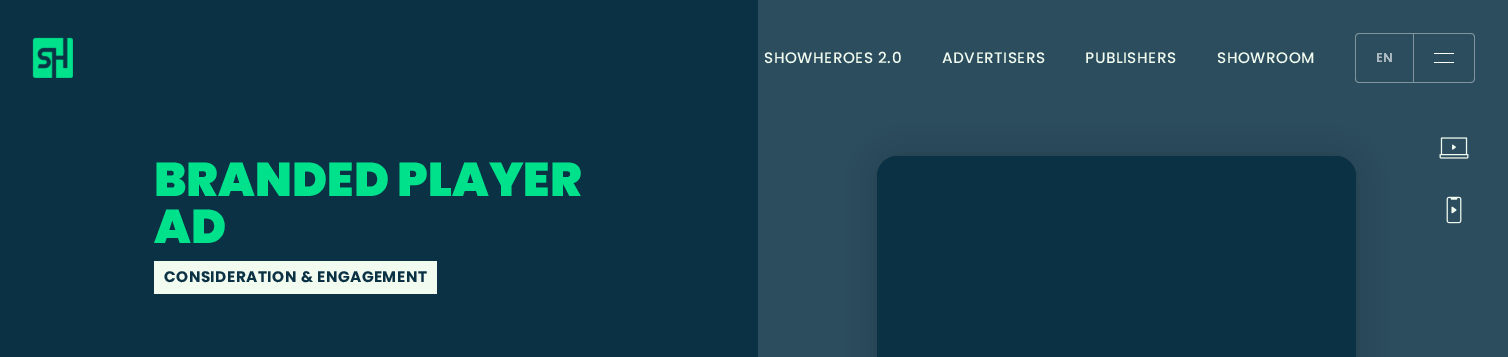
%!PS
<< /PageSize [1508 357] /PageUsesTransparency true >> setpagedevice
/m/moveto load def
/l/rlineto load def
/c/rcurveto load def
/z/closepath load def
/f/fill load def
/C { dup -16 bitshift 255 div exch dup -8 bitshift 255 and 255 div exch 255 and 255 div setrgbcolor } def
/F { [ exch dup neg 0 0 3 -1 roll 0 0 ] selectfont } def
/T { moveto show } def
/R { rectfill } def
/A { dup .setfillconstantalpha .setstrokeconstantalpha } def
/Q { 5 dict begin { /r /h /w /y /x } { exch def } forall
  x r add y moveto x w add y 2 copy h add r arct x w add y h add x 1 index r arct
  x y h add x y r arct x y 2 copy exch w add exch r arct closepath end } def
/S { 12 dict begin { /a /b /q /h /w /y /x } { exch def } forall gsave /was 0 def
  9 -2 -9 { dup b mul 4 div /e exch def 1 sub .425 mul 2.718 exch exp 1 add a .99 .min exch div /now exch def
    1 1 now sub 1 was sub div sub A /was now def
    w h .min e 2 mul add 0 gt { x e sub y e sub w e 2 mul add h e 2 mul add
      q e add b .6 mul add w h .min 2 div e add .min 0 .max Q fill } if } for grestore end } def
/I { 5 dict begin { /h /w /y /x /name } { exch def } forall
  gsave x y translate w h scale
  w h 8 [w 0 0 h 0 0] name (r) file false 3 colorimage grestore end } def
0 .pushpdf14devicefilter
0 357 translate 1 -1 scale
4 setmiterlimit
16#0B3144 C
0 0 1508 357 R
(1.rgb) 32 37 41 41 I
16#2B4D5E C
758 0 750 357 R
/Poppins-Medium 15.25 F
16#F1FBEF C
764 63 m .5 0 (SHOWHEROES 2.0) ashow
942 63 m .5 0 (ADVERTISERS) ashow
1085 63 m .5 0 (PUBLISHERS) ashow
1217 63 m .5 0 (SHOWROOM) ashow
16#80949E C
1359 33 m 54 0 l 0 50 l -54 0 l -2 0 -4 -2 -4 -4 c 0 -42 l 0 -2 2 -4 4 -4 c z 1359 34 m 54 0 l 0 48 l -54 0 l -2 0 -3 -1 -3 -3 c 0 -42 l 0 -2 1 -3 3 -3 c z eofill
/Poppins-Medium 13 F
16#FFFFFF C
(EN) 1376 62 T
16#80949E C
1413 33 1 50 R
1414 33 m 57 0 l 2 0 4 2 4 4 c 0 42 l 0 2 -2 4 -4 4 c -57 0 l z 1414 34 m 57 0 l 2 0 3 1 3 3 c 0 42 l 0 2 -1 3 -3 3 c -57 0 l z eofill
16#FFFFFF C
1434 53 20 1 R
1434 62 20 1 R
16#ABB8BF C
(EN) 1376 62 T
/Poppins-Black 47.5 F
16#00E18C C
(BRANDED PLAYER) 154 196 T
(AD) 154 243 T
16#F1FBEF C
154 261 283 33 R
/Poppins-Bold 15.25 F
16#0B3144 C
164 282 m .5 0 (CONSIDERATION & ENGAGEMENT) ashow
16#000000 C
877 156 479 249 20 15 .2 S
16#0B3144 C
877 156 479 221 20 Q f
(2.rgb) 1439 137 30 22 I
(3.rgb) 1446 196 16 28 I
.poppdf14devicefilter showpage
